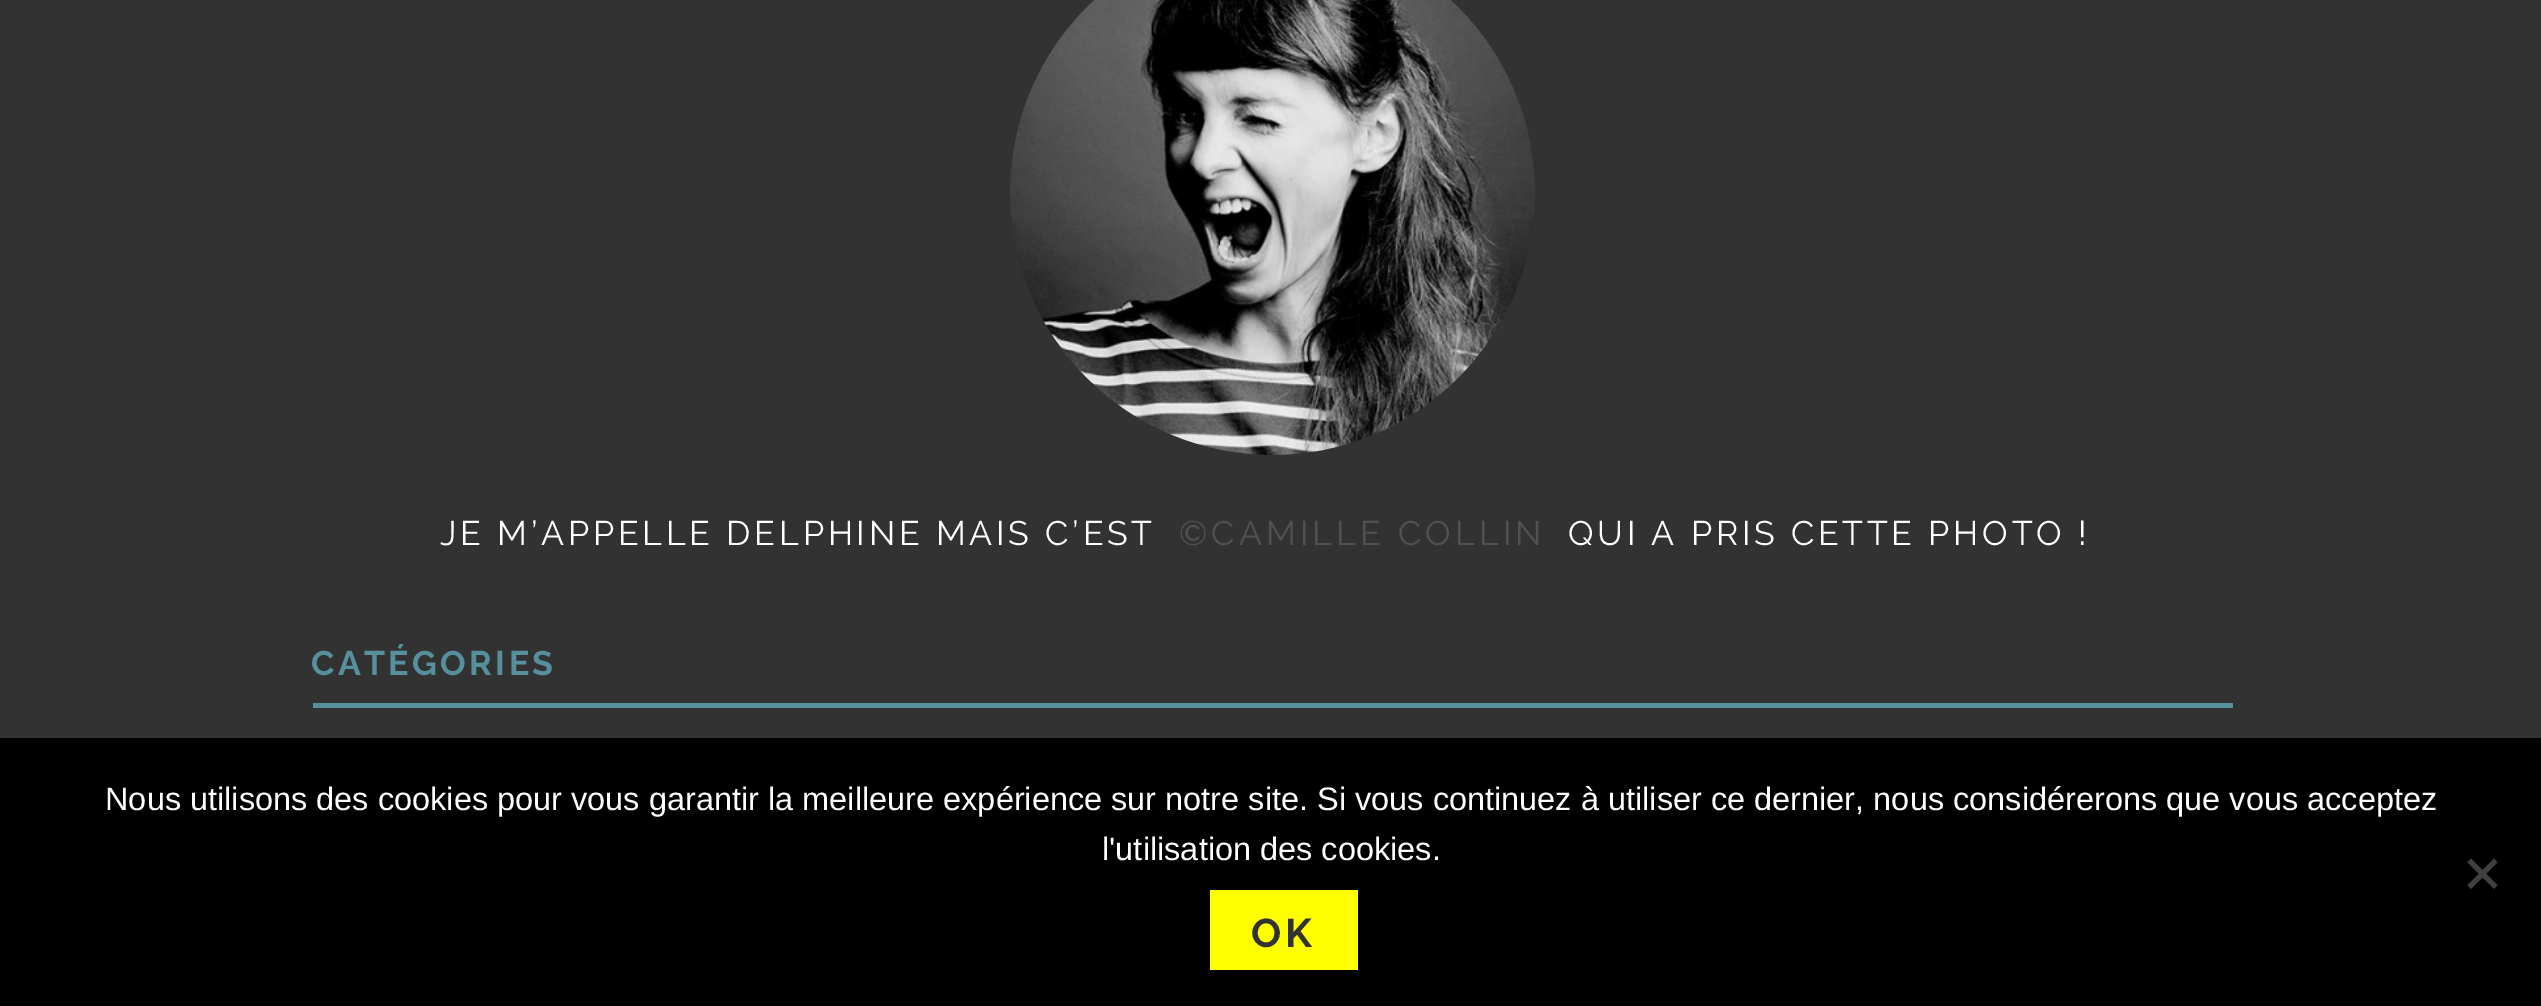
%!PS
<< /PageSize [2541 1006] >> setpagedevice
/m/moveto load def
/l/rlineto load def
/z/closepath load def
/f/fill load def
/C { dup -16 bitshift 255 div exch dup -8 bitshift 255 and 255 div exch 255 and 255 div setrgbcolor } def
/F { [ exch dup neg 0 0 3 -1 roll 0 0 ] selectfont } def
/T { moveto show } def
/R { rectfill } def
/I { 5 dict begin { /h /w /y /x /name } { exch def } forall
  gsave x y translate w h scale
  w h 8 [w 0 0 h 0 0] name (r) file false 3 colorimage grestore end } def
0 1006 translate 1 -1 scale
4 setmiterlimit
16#323232 C
0 0 2541 1006 R
(1.rgb) 1010 0 525 455 I
/Raleway-Regular 34 F
16#FFFFFF C
440 545 m 3.8 0 (JE M’APPELLE DELPHINE MAIS C’EST) ashow
16#515151 C
1179 545 m 4.1 0 (©CAMILLE COLLIN) ashow
16#FFFFFF C
1568 545 m 3.8 0 (QUI A PRIS CETTE PHOTO !) ashow
16#56909D C
313 703 1920 5 R
/Raleway-Bold 34 F
311 675 m 3.4 0 (CATÉGORIES) ashow
16#000000 C
0 738 2541 268 R
/LiberationSans-Regular 32.5 F
16#FFFFFF C
(Nous utilisons des cookies pour vous garantir la meilleure expérience sur notre site. Si vous continuez à utiliser ce dernier, nous considérerons que vous acceptez) 105 810 T
(l'utilisation des cookies.) 1102 860 T
16#404040 C
2494 858.5 m 3.5 4 l -26.5 26.5 l -3.5 -4 l z f
2467.5 862.5 m 3.5 -4 l 26.5 26.5 l -3.5 4 l z f
16#FFFF00 C
1210 890 148 80 R
/Raleway-Bold 40 F
16#323232 C
1251 947 m 4 0 (OK) ashow
showpage
